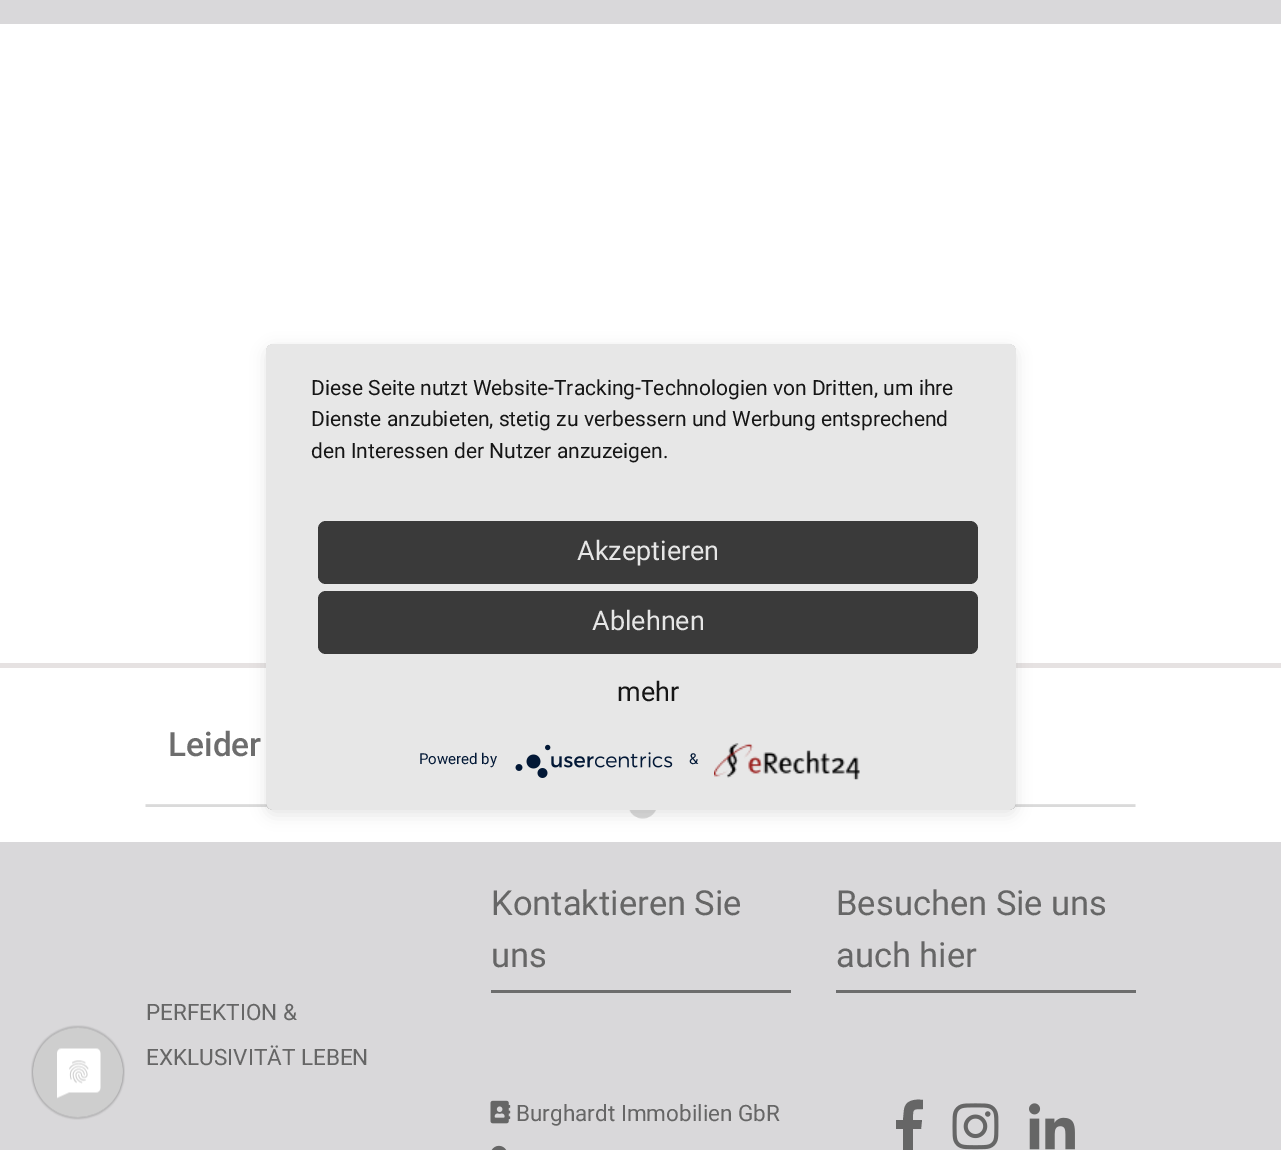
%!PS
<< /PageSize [1281 1150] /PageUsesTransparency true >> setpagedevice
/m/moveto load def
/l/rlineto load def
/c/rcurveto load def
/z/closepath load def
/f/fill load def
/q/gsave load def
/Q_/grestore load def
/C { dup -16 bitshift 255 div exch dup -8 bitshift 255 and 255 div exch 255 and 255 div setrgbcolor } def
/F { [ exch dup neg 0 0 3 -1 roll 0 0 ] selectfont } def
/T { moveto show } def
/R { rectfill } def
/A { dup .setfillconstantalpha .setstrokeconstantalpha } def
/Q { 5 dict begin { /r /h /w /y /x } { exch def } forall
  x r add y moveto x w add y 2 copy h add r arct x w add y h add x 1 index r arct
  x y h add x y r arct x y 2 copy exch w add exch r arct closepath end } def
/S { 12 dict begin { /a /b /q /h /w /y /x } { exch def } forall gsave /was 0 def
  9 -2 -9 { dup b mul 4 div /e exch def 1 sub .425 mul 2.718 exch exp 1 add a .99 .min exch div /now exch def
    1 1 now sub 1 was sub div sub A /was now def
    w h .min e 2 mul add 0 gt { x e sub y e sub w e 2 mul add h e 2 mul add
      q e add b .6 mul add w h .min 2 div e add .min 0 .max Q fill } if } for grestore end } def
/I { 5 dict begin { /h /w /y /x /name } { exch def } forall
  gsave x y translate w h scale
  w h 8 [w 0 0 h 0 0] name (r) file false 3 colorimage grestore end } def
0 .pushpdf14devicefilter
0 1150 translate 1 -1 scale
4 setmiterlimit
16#FFFFFF C
0 0 1281 1150 R
16#D9D8DA C
0 0 1281 24 R
16#E6E2E2 C
0 663 1281 5 R
/Roboto-Medium 33.5 F
16#6D6D6D C
(Leider) 168 756 T
(4.rgb) 145 790 991 29 I
16#000000 C
266 348 750 467 8 7.5 .1 S
16#D9D8DA C
0 842 1281 308 R
q
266 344 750 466 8 Q clip newpath
16#000000 C
266 353 750 466 0 27 .3 S
Q_
16#E7E7E7 C
266 344 750 466 8 Q f
/Roboto-Regular 21 F
16#161616 C
(Diese Seite nutzt Website-Tracking-Technologien von Dritten, um ihre) 311 395 T
(Dienste anzubieten, stetig zu verbessern und Werbung entsprechend) 311 426 T
(den Interessen der Nutzer anzuzeigen.) 311 458 T
16#3A3A3A C
318 521 660 63 8 Q f
/Roboto-Regular 27 F
16#E6E6E6 C
(Akzeptieren) 577 560 T
16#3A3A3A C
318 591 660 63 8 Q f
16#E6E6E6 C
(Ablehnen) 592 630 T
16#161616 C
(mehr) 617 701 T
/Roboto-Regular 15 F
16#021836 C
(Powered by) 419 764 T
(1.rgb) 515 744 158 34 I
(&) 689 764 T
(2.rgb) 714 743 146 37 I
(3.rgb) 31 1025 94 95 I
16#6D6D6D C
491 990 300 3 R
/Roboto-Regular 34.5 F
16#666666 C
(Kontaktieren Sie) 491 915 T
(uns) 491 967 T
(5.rgb) 490 1100 21 24 I
/Roboto-Regular 22.5 F
(Burghardt Immobilien GbR) 516 1121 T
(6.rgb) 491 1145 16 5 I
16#6D6D6D C
836 990 300 3 R
/Roboto-Regular 34.5 F
16#666666 C
(Besuchen Sie uns) 836 915 T
(auch hier) 836 967 T
903 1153 m 0 -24 l -7 0 l 0 -9 l 7 0 l 1 -10 l 1 -10 11 -11 19 -10 c 0 9 l -11 0 -10 0 -10 11 c 9 0 l -1 9 l -8 0 l 0 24 l z f
(7.rgb) 952 1103 47 47 I
(8.rgb) 1029 1103 46 47 I
/Roboto-Regular 22.5 F
(PERFEKTION &) 146 1020 T
(EXKLUSIVITÄT LEBEN) 146 1065 T
.poppdf14devicefilter showpage
